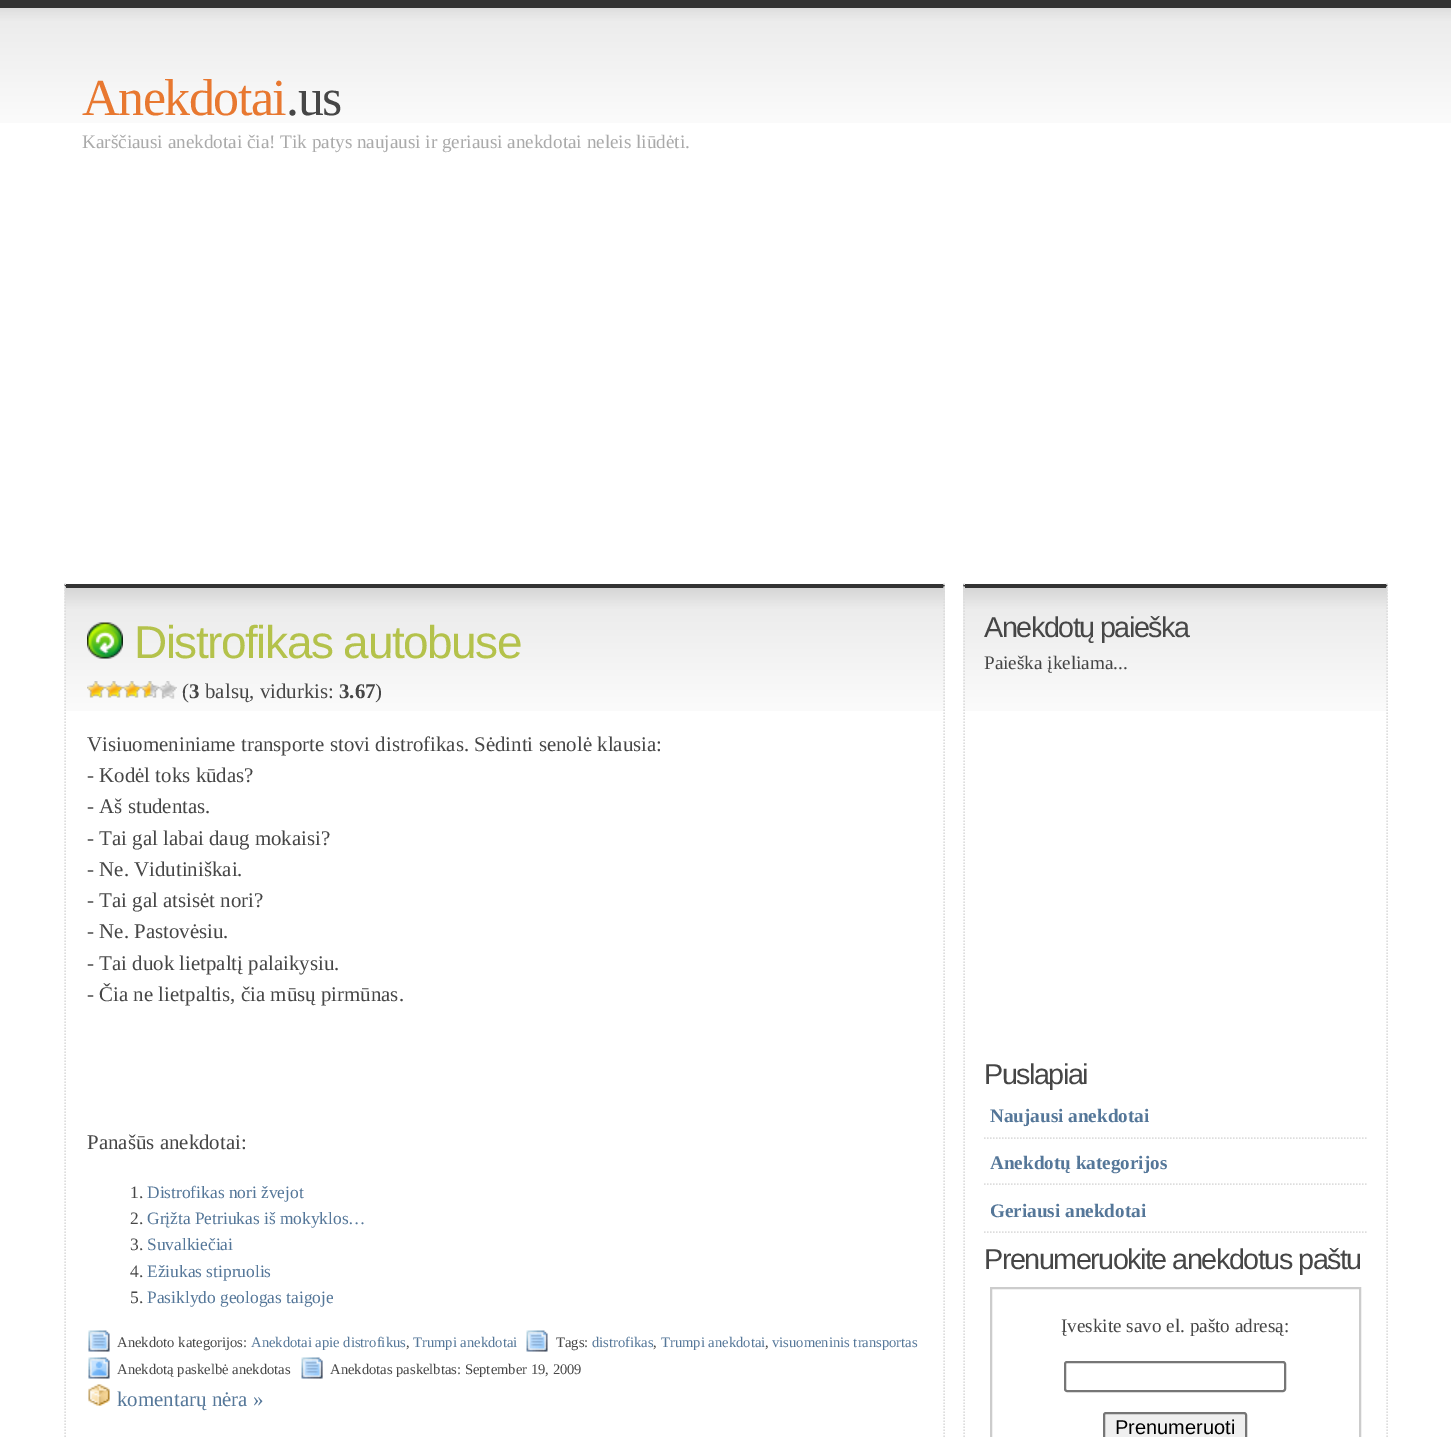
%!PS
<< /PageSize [1451 1437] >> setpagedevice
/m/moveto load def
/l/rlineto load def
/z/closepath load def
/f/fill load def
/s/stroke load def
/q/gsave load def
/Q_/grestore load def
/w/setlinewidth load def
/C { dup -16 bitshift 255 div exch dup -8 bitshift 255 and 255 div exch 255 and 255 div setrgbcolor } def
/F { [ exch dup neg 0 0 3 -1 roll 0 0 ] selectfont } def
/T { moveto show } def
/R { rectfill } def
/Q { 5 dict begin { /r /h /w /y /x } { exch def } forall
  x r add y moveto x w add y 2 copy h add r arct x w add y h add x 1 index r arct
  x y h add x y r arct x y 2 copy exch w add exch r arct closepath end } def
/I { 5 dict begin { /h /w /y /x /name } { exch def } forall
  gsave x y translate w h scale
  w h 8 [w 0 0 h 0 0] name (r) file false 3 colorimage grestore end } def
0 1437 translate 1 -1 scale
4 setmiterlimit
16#FFFFFF C
0 0 1451 1437 R
(1.rgb) 0 8 1451 115 I
16#333333 C
0 0 1451 8 R
/LiberationSerif-Regular 52 F
16#E87830 C
82 115 m -1.5 0 (Anekdotai) ashow
16#464646 C
286 115 m -1.5 0 (.us) ashow
/LiberationSerif-Regular 19.15 F
16#AAAAAA C
(Karščiausi anekdotai čia! Tik patys naujausi ir geriausi anekdotai neleis liūdėti.) 82 148 T
(2.rgb) 64 588 881 123 I
16#333333 C
64 584 m 881 0 l -1 4 l -878 0 l z f
16#DDDDDD C
1.5 w
[1.5 1.5] 0 setdash
944 583.5 m 0 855 l s
65 583.5 m 0 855 l s
(3.rgb) 87 622 36 37 I
/LiberationSans-Regular 46 F
16#B4C24B C
134 658 m -1.5 0 (Distrofikas autobuse) ashow
(4.rgb) 87 681 18 17 I
(4.rgb) 105 681 18 17 I
(4.rgb) 123 681 18 17 I
(5.rgb) 141 681 18 17 I
(6.rgb) 159 681 18 18 I
/LiberationSerif-Regular 20.9 F
16#464646 C
(\() 182 698 T
/LiberationSerif-Bold 20.9 F
(3) 189 698 T
/LiberationSerif-Regular 20.9 F
(balsų, vidurkis:) 205 698 T
/LiberationSerif-Bold 20.9 F
(3.67) 339 698 T
/LiberationSerif-Regular 20.9 F
(\)) 375 698 T
(Visiuomeniniame transporte stovi distrofikas. Sėdinti senolė klausia:) 87 751 T
(- Kodėl toks kūdas?) 87 782 T
(- Aš studentas.) 87 813 T
(- Tai gal labai daug mokaisi?) 87 845 T
(- Ne. Vidutiniškai.) 87 876 T
(- Tai gal atsisėt nori?) 87 907 T
(- Ne. Pastovėsiu.) 87 938 T
(- Tai duok lietpaltį palaikysiu.) 87 970 T
(- Čia ne lietpaltis, čia mūsų pirmūnas.) 87 1001 T
(Panašūs anekdotai:) 87 1149 T
/LiberationSerif-Regular 17.4 F
(1.) 130 1198 T
16#557799 C
(Distrofikas nori žvejot) 147 1198 T
16#464646 C
(2.) 130 1224 T
16#557799 C
(Grįžta Petriukas iš mokyklos…) 147 1224 T
16#464646 C
(3.) 130 1250 T
16#557799 C
(Suvalkiečiai) 147 1250 T
16#464646 C
(4.) 130 1277 T
16#557799 C
(Ežiukas stipruolis) 147 1277 T
16#464646 C
(5.) 130 1303 T
16#557799 C
(Pasiklydo geologas taigoje) 147 1303 T
(7.rgb) 88 1330 22 22 I
/LiberationSerif-Regular 14.6 F
16#464646 C
(Anekdoto kategorijos:) 117 1347 T
16#557799 C
(Anekdotai apie distrofikus) 251 1347 T
16#464646 C
(,) 406 1347 T
16#557799 C
(Trumpi anekdotai) 413 1347 T
(8.rgb) 526 1330 22 22 I
16#464646 C
(Tags:) 556 1347 T
16#557799 C
(distrofikas) 592 1347 T
16#464646 C
(,) 653 1347 T
16#557799 C
(Trumpi anekdotai) 661 1347 T
16#464646 C
(,) 765 1347 T
16#557799 C
(visuomeninis transportas) 772 1347 T
(9.rgb) 88 1357 22 22 I
16#464646 C
(Anekdotą paskelbė anekdotas) 117 1374 T
(10.rgb) 301 1357 22 22 I
(Anekdotas paskelbtas: September 19, 2009) 330 1374 T
(11.rgb) 88 1384 22 22 I
/LiberationSerif-Regular 20.9 F
16#557799 C
(komentarų nėra ») 117 1406 T
(12.rgb) 963 588 425 123 I
16#333333 C
963 584 m 425 0 l -2 4 l -422 0 l z f
16#DDDDDD C
1387 583.5 m 0 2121 l s
964 583.5 m 0 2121 l s
/LiberationSans-Regular 28.75 F
16#464646 C
984 637 m -1.5 0 (Anekdotų paieška) ashow
/LiberationSerif-Regular 19.15 F
(Paieška įkeliama...) 984 669 T
/LiberationSans-Regular 28.75 F
984 1084 m -1.5 0 (Puslapiai) ashow
16#DDDDDD C
984 1138 m 382.5 0 l s
/LiberationSerif-Bold 19.15 F
16#557799 C
(Naujausi anekdotai) 990 1122 T
16#DDDDDD C
984 1184 m 382.5 0 l s
16#557799 C
(Anekdotų kategorijos) 990 1169 T
16#DDDDDD C
984 1232 m 382.5 0 l s
16#557799 C
(Geriausi anekdotai) 990 1217 T
/LiberationSans-Regular 28.75 F
16#464646 C
984 1269 m -1.5 0 (Prenumeruokite anekdotus paštu) ashow
16#CCCCCC C
2 w
[] 0 setdash
991 1288 369 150 rectstroke
/LiberationSerif-Regular 19.15 F
16#464646 C
(Įveskite savo el. pašto adresą:) 1061 1332 T
16#767676 C
1065 1362 220 29 2 Q s
16#EFEFEF C
1104 1413 142 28 2 Q q f Q_
16#767676 C
s
/LiberationSans-Regular 20 F
16#000000 C
(Prenumeruoti) 1115 1434 T
showpage
